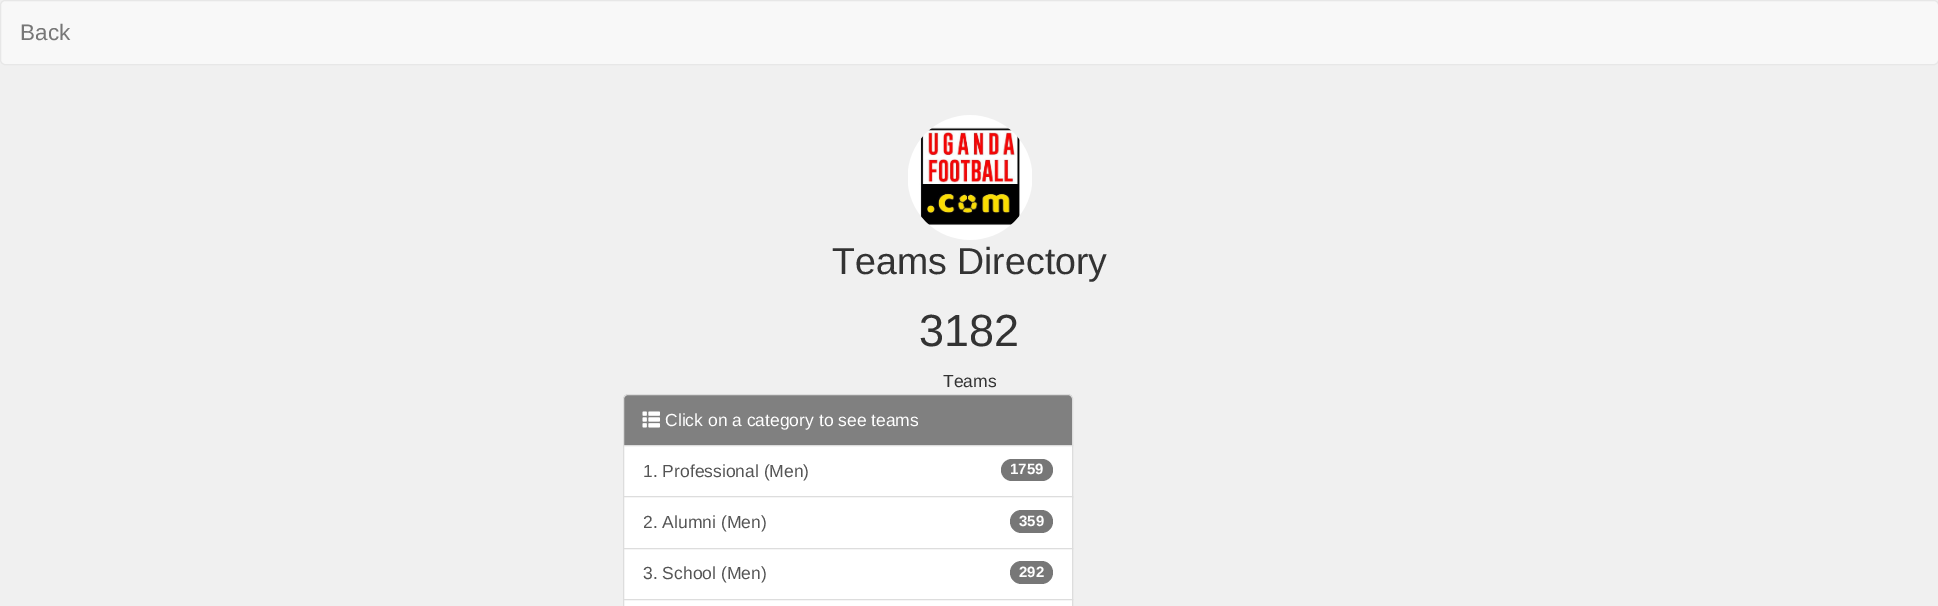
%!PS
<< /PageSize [1938 606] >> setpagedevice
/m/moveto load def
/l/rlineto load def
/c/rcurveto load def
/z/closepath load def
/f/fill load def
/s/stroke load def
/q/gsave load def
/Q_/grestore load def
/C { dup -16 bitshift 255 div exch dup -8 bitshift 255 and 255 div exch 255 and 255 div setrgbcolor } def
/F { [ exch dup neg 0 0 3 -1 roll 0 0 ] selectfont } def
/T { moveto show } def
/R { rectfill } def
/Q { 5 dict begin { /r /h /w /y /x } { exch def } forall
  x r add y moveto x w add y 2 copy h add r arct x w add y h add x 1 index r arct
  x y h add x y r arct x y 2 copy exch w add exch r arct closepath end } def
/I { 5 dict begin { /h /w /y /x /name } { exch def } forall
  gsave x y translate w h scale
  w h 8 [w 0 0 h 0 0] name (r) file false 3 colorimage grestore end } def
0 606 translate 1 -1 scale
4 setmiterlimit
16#F0F0F0 C
0 0 1938 606 R
16#F8F8F8 C
.5 .5 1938 64 4.5 Q q f Q_
16#E7E7E7 C
s
/LiberationSans-Regular 22.5 F
16#777777 C
(Back) 20 40 T
(1.rgb) 908 115 124 125 I
/LiberationSans-Regular 37.5 F
16#333333 C
(Teams Directory) 832 274 T
/LiberationSans-Regular 45 F
(3182) 919 346 T
/LiberationSans-Regular 17.5 F
(Teams) 943 387 T
16#808080 C
628 394.5 m 440 0 l 2.5 0 4.5 2 4.5 4.5 c 0 46.5 l -449 0 l 0 -46.5 l 0 -2.5 2 -4.5 4.5 -4.5 c z q f Q_
16#DDDDDD C
s
(2.rgb) 642 411 18 17 I
16#FFFFFF C
(Click on a category to see teams) 665 426 T
624 446 448 50 R
16#DDDDDD C
623.5 445.5 449 52 rectstroke
16#555555 C
(1. Professional \(Men\)) 643 477 T
16#777777 C
1001 459 52 22 11 Q f
/LiberationSans-Bold 15 F
16#FFFFFF C
(1759) 1010 474 T
623.5 496.5 m 449 0 l 0 52 l -449 0 l z q f Q_
16#DDDDDD C
s
/LiberationSans-Regular 17.5 F
16#555555 C
(2. Alumni \(Men\)) 643 528 T
16#777777 C
1010 510 43 23 11.5 Q f
/LiberationSans-Bold 15 F
16#FFFFFF C
(359) 1019 526 T
623.5 548.5 m 449 0 l 0 51 l -449 0 l z q f Q_
16#DDDDDD C
s
/LiberationSans-Regular 17.5 F
16#555555 C
(3. School \(Men\)) 643 579 T
16#777777 C
1010 561 43 23 11.5 Q f
/LiberationSans-Bold 15 F
16#FFFFFF C
(292) 1019 577 T
623.5 599.5 m 449 0 l 0 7 l -449 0 l z q f Q_
16#DDDDDD C
s
showpage
